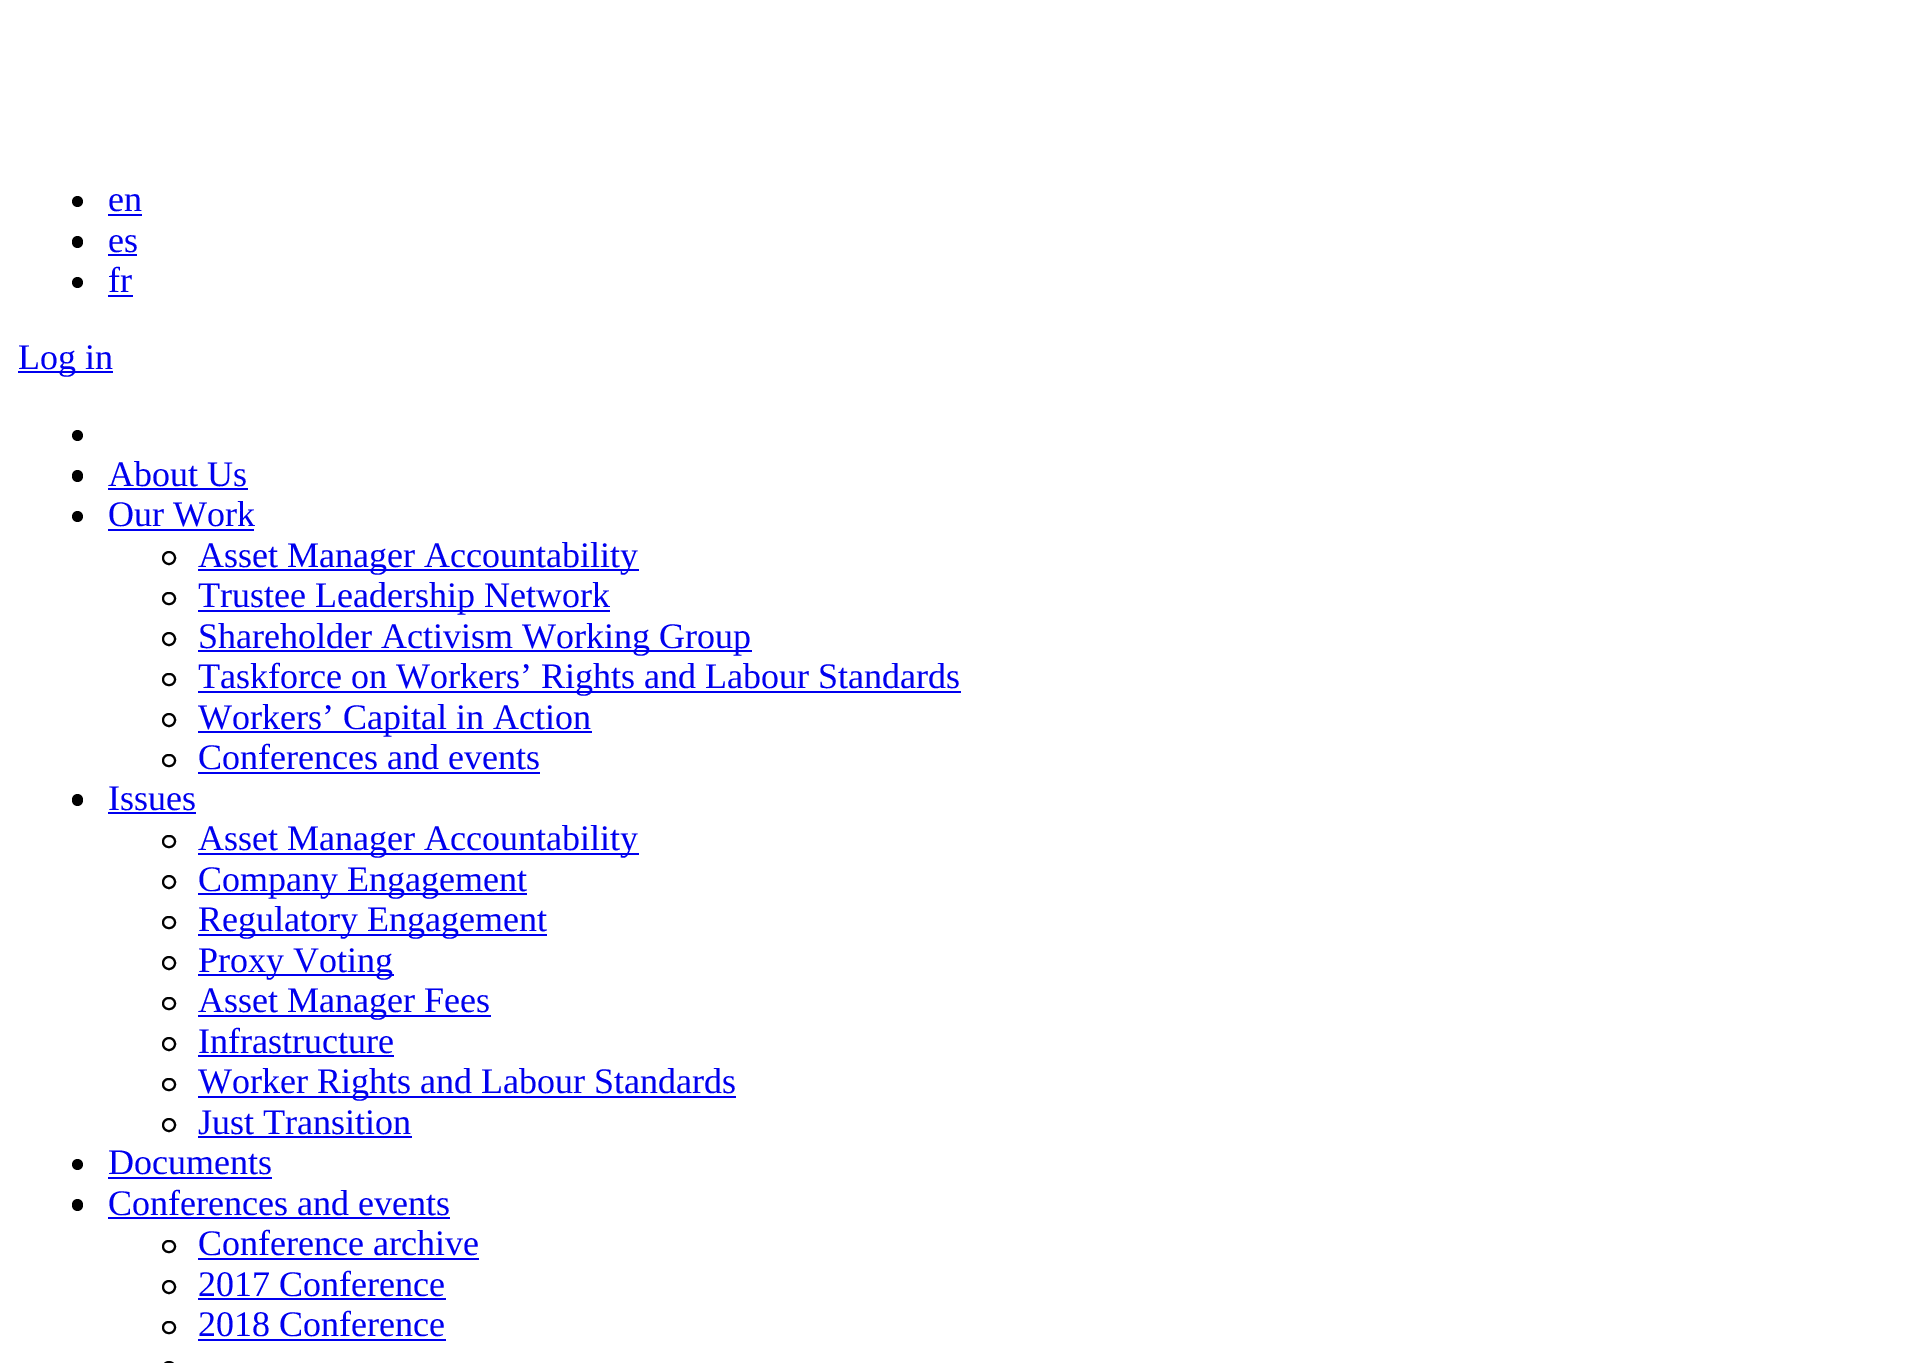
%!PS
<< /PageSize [1905 1363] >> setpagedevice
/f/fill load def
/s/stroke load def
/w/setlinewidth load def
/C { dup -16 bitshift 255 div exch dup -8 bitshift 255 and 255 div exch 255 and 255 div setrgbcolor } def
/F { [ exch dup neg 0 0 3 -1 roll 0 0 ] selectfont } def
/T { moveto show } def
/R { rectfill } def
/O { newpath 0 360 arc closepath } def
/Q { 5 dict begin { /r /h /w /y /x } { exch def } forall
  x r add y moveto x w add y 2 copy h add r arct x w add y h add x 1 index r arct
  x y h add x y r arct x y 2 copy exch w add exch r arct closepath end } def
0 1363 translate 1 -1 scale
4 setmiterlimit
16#FFFFFF C
0 0 1905 1363 R
16#000000 C
77.5 201.5 5.5 O f
/LiberationSerif-Regular 36 F
16#0000EE C
(en) 108 211 T
108 214 34 2 R
16#000000 C
72 236 11 12 5.5 Q f
16#0000EE C
(es) 108 252 T
108 254 29 2 R
16#000000 C
77.5 282.5 5.5 O f
16#0000EE C
(fr) 108 292 T
108 295 25 2 R
18 371 95 2 R
(Log in) 18 369 T
16#000000 C
77.5 435.5 5.5 O f
72 470 11 12 5.5 Q f
16#0000EE C
(About Us) 108 486 T
108 488 140 2 R
16#000000 C
77.5 516.5 5.5 O f
16#0000EE C
(Our Work) 108 526 T
108 529 146 2 R
16#000000 C
2 w
169 558 6 O s
16#0000EE C
198 569 441 2 R
(Asset Manager Accountability) 198 567 T
16#000000 C
163 593 12 11 5.5 Q s
16#0000EE C
198 610 412 2 R
(Trustee Leadership Network) 198 607 T
16#000000 C
169 639 6 O s
16#0000EE C
198 650 554 2 R
(Shareholder Activism Working Group) 198 648 T
16#000000 C
163 674 12 11 5.5 Q s
16#0000EE C
198 691 763 2 R
(Taskforce on Workers’ Rights and Labour Standards) 198 688 T
16#000000 C
169 720 6 O s
16#0000EE C
198 731 394 2 R
(Workers’ Capital in Action) 198 729 T
16#000000 C
163 755 12 11 5.5 Q s
16#0000EE C
(Conferences and events) 198 769 T
198 772 342 2 R
16#000000 C
72 794 11 12 5.5 Q f
16#0000EE C
(Issues) 108 810 T
108 812 88 2 R
16#000000 C
163 836 12 11 5.5 Q s
16#0000EE C
198 853 441 2 R
(Asset Manager Accountability) 198 850 T
16#000000 C
169 882 6 O s
16#0000EE C
198 893 329 2 R
(Company Engagement) 198 891 T
16#000000 C
163 917 12 11 5.5 Q s
16#0000EE C
198 934 349 2 R
(Regulatory Engagement) 198 931 T
16#000000 C
169 963 6 O s
16#0000EE C
198 974 196 2 R
(Proxy Voting) 198 972 T
16#000000 C
163 998 12 11 5.5 Q s
16#0000EE C
198 1015 293 2 R
(Asset Manager Fees) 198 1012 T
16#000000 C
169 1044 6 O s
16#0000EE C
(Infrastructure) 198 1053 T
198 1055 196 2 R
16#000000 C
163 1079 12 11 5.5 Q s
16#0000EE C
198 1096 538 2 R
(Worker Rights and Labour Standards) 198 1093 T
16#000000 C
169 1125 6 O s
16#0000EE C
(Just Transition) 198 1134 T
198 1136 214 2 R
16#000000 C
77.5 1164.5 5.5 O f
16#0000EE C
(Documents) 108 1174 T
108 1177 164 2 R
16#000000 C
72 1199 11 12 5.5 Q f
16#0000EE C
(Conferences and events) 108 1215 T
108 1217 342 2 R
16#000000 C
163 1241 12 11 5.5 Q s
16#0000EE C
(Conference archive) 198 1255 T
198 1258 281 2 R
16#000000 C
169 1287 6 O s
16#0000EE C
(2017 Conference) 198 1296 T
198 1298 248 2 R
16#000000 C
163 1322 12 11 5.5 Q s
16#0000EE C
(2018 Conference) 198 1336 T
198 1339 248 2 R
16#000000 C
163 1362 12 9 6 Q s
showpage
